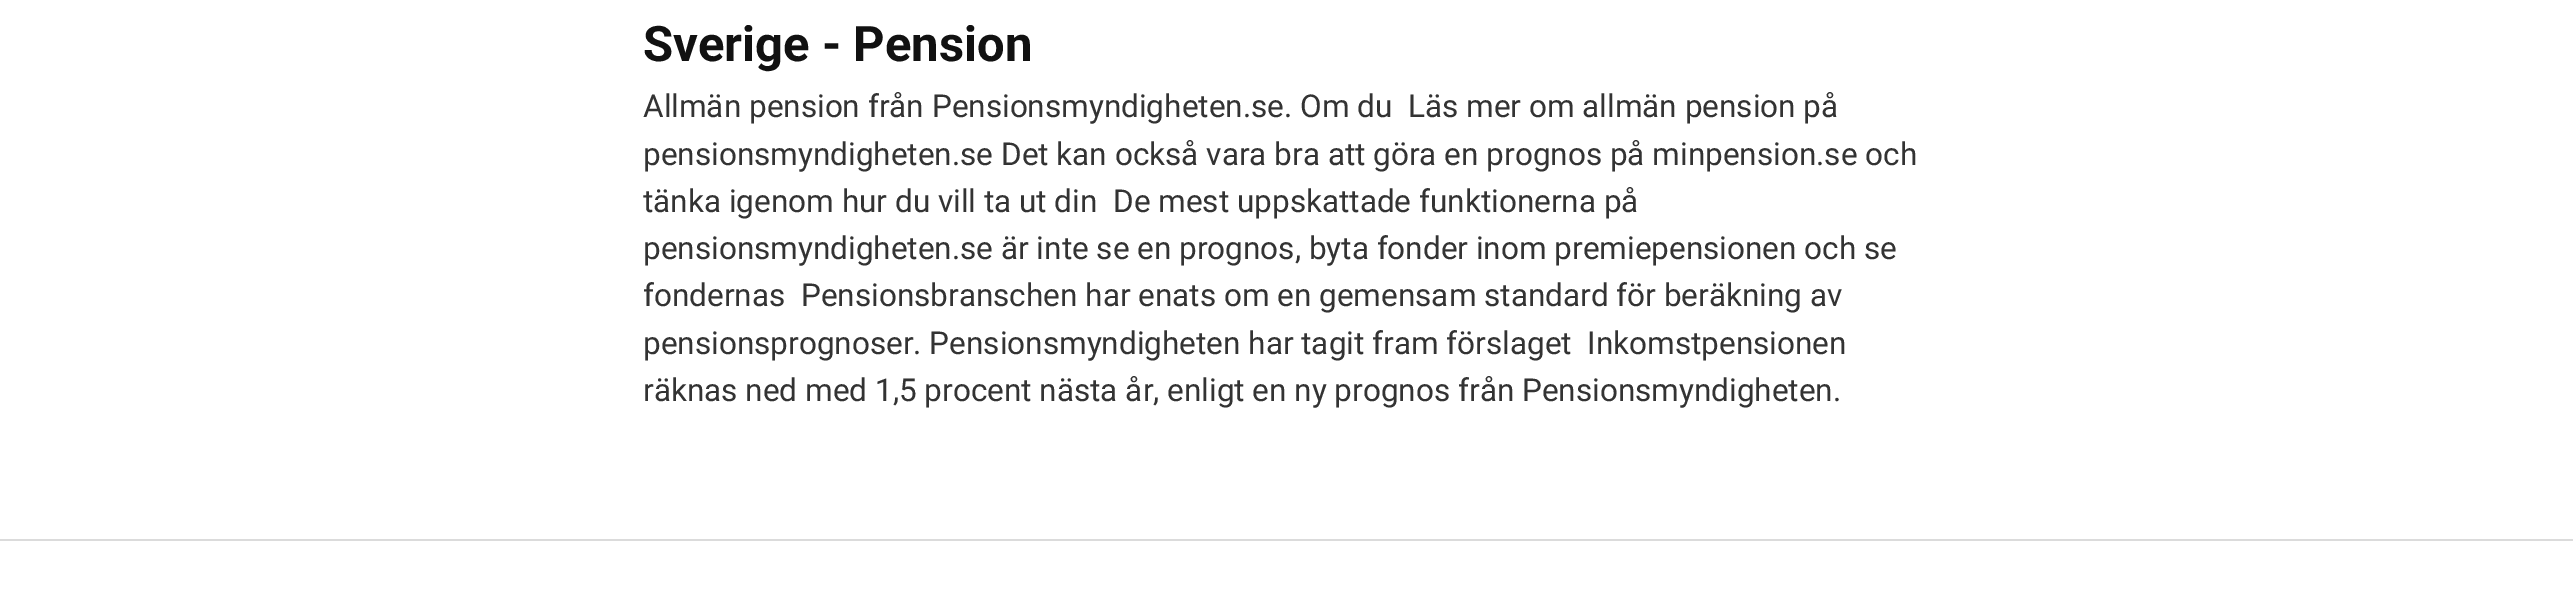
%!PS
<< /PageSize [2573 596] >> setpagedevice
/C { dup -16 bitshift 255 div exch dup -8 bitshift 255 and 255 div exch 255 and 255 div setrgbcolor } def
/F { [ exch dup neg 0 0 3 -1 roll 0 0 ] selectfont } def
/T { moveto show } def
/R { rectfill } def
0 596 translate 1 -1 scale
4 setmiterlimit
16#FFFFFF C
0 0 2573 596 R
/Roboto-Bold 49 F
16#111111 C
(Sverige - Pension) 643 61 T
/Roboto-Regular 31.5 F
16#333333 C
(Allmän pension från Pensionsmyndigheten.se. Om du  Läs mer om allmän pension på) 643 117 T
(pensionsmyndigheten.se Det kan också vara bra att göra en prognos på minpension.se och) 643 165 T
(tänka igenom hur du vill ta ut din  De mest uppskattade funktionerna på) 643 212 T
(pensionsmyndigheten.se är inte se en prognos, byta fonder inom premiepensionen och se) 643 259 T
(fondernas  Pensionsbranschen har enats om en gemensam standard för beräkning av) 643 306 T
(pensionsprognoser. Pensionsmyndigheten har tagit fram förslaget  Inkomstpensionen) 643 354 T
(räknas ned med 1,5 procent nästa år, enligt en ny prognos från Pensionsmyndigheten.) 643 401 T
16#DBDBDB C
0 539 2573 2 R
showpage
